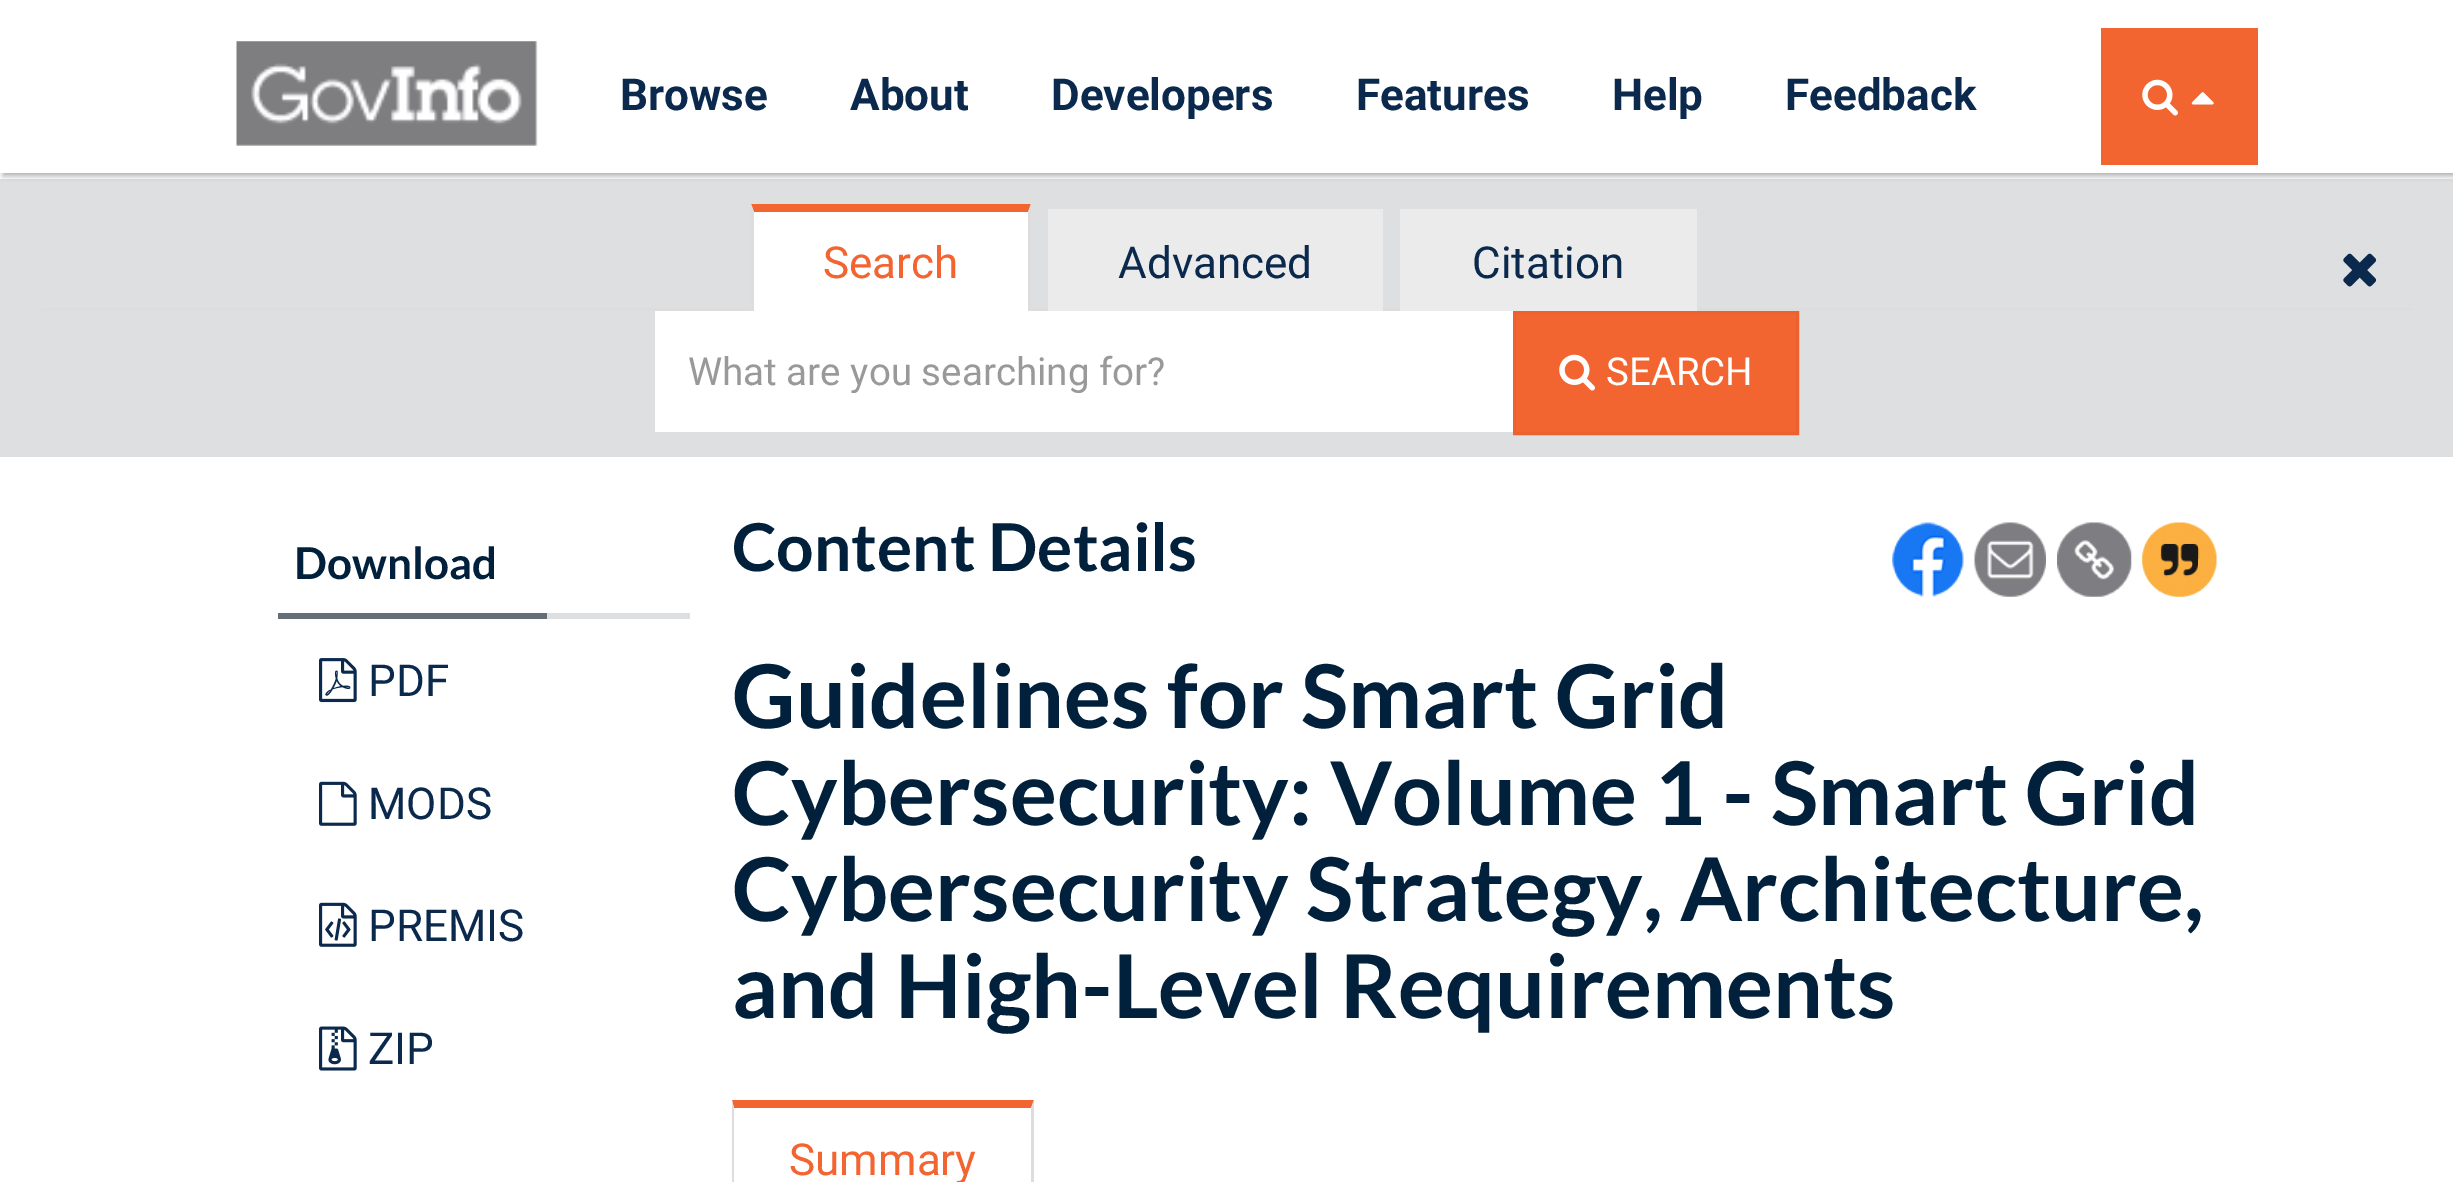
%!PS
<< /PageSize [2453 1182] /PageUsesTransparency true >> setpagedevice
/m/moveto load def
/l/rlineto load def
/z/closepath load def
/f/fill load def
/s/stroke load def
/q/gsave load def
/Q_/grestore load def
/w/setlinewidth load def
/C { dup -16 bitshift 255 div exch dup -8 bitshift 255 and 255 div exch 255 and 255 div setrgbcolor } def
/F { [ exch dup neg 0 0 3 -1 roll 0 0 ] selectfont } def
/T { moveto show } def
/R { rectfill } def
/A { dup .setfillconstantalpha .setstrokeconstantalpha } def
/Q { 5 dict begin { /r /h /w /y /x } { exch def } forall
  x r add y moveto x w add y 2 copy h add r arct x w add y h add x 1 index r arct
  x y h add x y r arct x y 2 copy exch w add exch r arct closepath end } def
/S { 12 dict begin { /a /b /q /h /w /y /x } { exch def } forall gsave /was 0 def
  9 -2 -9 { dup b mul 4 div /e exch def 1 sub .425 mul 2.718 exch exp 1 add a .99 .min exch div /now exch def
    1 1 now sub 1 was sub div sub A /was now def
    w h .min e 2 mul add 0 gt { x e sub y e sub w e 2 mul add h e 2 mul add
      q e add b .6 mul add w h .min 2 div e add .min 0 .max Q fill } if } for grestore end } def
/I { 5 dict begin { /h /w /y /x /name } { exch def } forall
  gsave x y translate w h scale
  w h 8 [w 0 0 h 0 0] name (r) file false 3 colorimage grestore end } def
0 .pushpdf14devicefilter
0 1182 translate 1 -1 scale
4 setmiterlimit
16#FFFFFF C
0 0 2453 1182 R
16#DEDFE1 C
0 179 2453 278 R
q
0 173 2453 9 rectclip
16#ACACAE C
3 3 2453 173 0 3 1 S
Q_
(1.rgb) 236 41 302 105 I
/Roboto-Bold 44 F
16#0B294D C
(Browse) 620 110 T
(About) 850 110 T
(Developers) 1051 110 T
(Features) 1356 110 T
(Help) 1612 110 T
(Feedback) 1785 110 T
16#F26531 C
2101 28 157 137 R
(2.rgb) 2142 79 36 37 I
(3.rgb) 2191 92 23 13 I
16#DDDDDD C
41 308 2371 3 R
16#FFFFFF C
751 204 280 107 R
16#F26531 C
751 204 m 280 0 l -3 8 l -274 0 l z f
16#DDDDDD C
1031 204 m 0 118 l -3 -3 l 0 -107 l z f
751 322 m 0 -118 l 3 8 l 0 107 l z f
/Roboto-Regular 44 F
16#F26531 C
(Search) 823 278 T
16#EBEBEB C
1048 209 335 102 R
16#0B294D C
(Advanced) 1118 278 T
16#EBEBEB C
1400 209 297 102 R
16#0B294D C
(Citation) 1472 278 T
16#FFFFFF C
655 311 858 121 R
q
688 349 794 44 rectclip
/Roboto-Regular 38.5 F
16#999999 C
(What are you searching for?) 688 385 T
Q_
16#F26531 C
1514.5 312.5 m 283 0 l 0 121 l -283 0 l z q f Q_
16#EC622F C
3 w
s
(2.rgb) 1559 354 36 37 I
/Roboto-Regular 38.5 F
16#FFFFFF C
(SEARCH) 1606 385 T
(4.rgb) 2343 253 34 34 I
16#DEDFE1 C
547 613 143 6 R
/Lato-Bold 44 F
16#01203B C
(Download) 294 579 T
16#666E75 C
278 613 269 6 R
(5.rgb) 319 658 38 45 I
/Roboto-Regular 44 F
16#0B294D C
(PDF) 368 696 T
(6.rgb) 319 781 38 45 I
(MODS) 368 819 T
(7.rgb) 319 902 38 45 I
(PREMIS) 368 941 T
(8.rgb) 319 1026 38 45 I
(ZIP) 368 1064 T
/Lato-Bold 66 F
16#01203B C
(Content Details) 732 571 T
(9.rgb) 1892 522 72 75 I
(10.rgb) 1974 522 72 75 I
(11.rgb) 2057 522 75 75 I
(12.rgb) 2142 522 75 75 I
/Lato-Bold 88 F
(Guidelines for Smart Grid) 732 728 T
(Cybersecurity: Volume 1 - Smart Grid) 732 825 T
(Cybersecurity Strategy, Architecture,) 732 921 T
(and High-Level Requirements) 732 1018 T
16#F26531 C
732 1100 m 302 0 l -3 8 l -297 0 l z f
16#DDDDDD C
1034 1100 m 0 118 l -3 -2 l 0 -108 l z f
732 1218 m 0 -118 l 2 8 l 0 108 l z f
/Roboto-Regular 44 F
16#F26531 C
(Summary) 789 1175 T
.poppdf14devicefilter showpage
